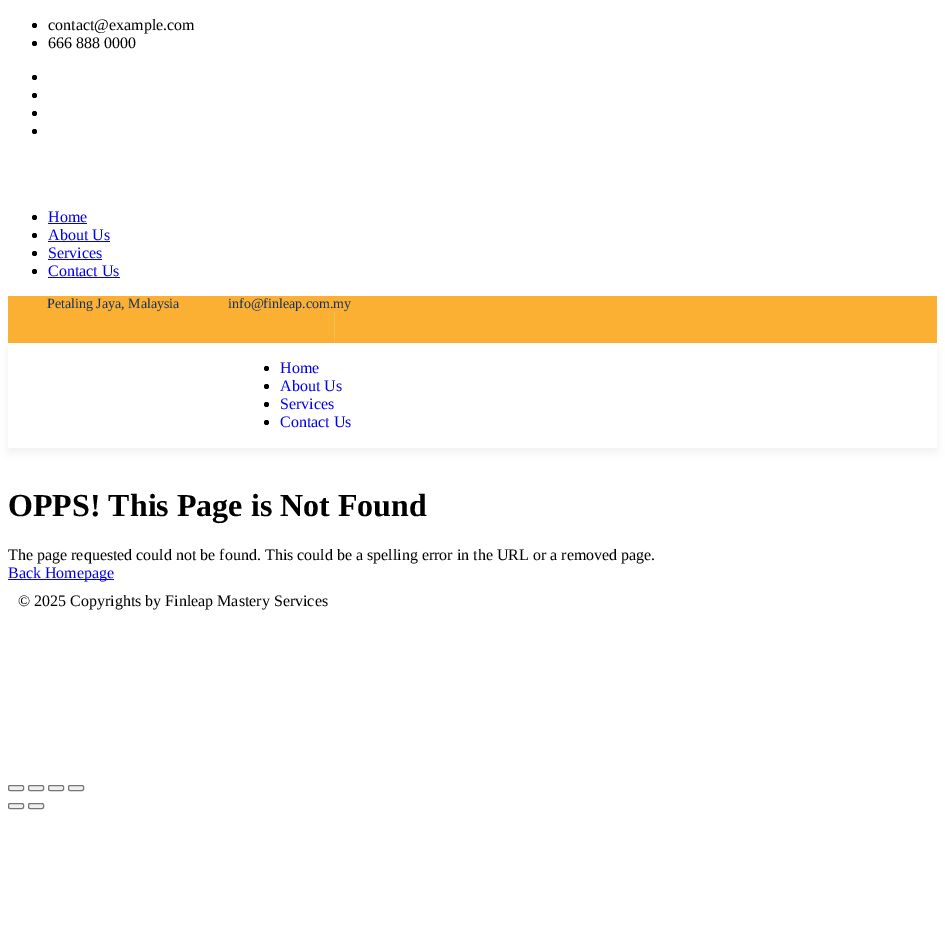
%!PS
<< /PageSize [945 944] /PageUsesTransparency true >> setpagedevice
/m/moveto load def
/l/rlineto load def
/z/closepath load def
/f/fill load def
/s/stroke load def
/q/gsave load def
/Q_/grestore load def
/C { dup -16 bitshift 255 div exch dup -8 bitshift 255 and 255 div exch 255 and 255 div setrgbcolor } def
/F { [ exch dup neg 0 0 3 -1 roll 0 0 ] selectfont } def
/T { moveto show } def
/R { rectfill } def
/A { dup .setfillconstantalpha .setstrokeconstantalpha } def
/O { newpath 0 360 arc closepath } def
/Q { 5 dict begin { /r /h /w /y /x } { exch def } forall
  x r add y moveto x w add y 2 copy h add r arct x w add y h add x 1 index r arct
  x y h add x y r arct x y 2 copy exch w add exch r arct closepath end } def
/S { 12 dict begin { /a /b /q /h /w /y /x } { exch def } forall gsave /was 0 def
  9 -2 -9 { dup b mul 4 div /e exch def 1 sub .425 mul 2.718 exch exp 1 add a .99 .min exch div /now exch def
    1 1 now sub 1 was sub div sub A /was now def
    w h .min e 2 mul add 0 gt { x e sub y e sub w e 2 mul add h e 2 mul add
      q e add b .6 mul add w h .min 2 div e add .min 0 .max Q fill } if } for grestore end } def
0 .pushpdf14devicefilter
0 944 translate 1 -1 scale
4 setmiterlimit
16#FFFFFF C
0 0 945 944 R
16#000000 C
34.5 25.5 2.5 O f
/LiberationSerif-Regular 16 F
(contact@example.com) 48 30 T
34.5 43.5 2.5 O f
(666 888 0000) 48 48 T
34.5 77.5 2.5 O f
34.5 95.5 2.5 O f
34.5 113.5 2.5 O f
34.5 131.5 2.5 O f
34.5 217.5 2.5 O f
16#0000EE C
(Home) 48 222 T
48 223 39 1 R
16#000000 C
34.5 235.5 2.5 O f
16#0000EE C
(About Us) 48 240 T
48 241 62 1 R
16#000000 C
34.5 253.5 2.5 O f
16#0000EE C
(Services) 48 258 T
48 259 54 1 R
16#000000 C
34.5 271.5 2.5 O f
16#0000EE C
(Contact Us) 48 276 T
48 277 72 1 R
16#FBB034 C
8 296 929 47 R
/LiberationSerif-Regular 14 F
16#16325C C
(Petaling Jaya, Malaysia) 47 308 T
(info@finleap.com.my) 228 308 T
16#FCBC52 C
334 312 1 31 R
q
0 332 m 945 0 l 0 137 l -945 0 l z 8 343 m 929 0 l 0 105 l -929 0 l z eoclip newpath
16#000000 C
8 348 929 105 0 5 .05 S
Q_
16#000000 C
266.5 368.5 2.5 O f
/LiberationSerif-Regular 16 F
16#0000EE C
(Home) 280 373 T
16#000000 C
266.5 386.5 2.5 O f
16#0000EE C
(About Us) 280 391 T
16#000000 C
266.5 404.5 2.5 O f
16#0000EE C
(Services) 280 409 T
16#000000 C
266.5 422.5 2.5 O f
16#0000EE C
(Contact Us) 280 427 T
/LiberationSerif-Bold 32 F
16#000000 C
(OPPS! This Page is Not Found) 8 516 T
/LiberationSerif-Regular 16 F
(The page requested could not be found. This could be a spelling error in the URL or a removed page.) 8 560 T
16#0000EE C
8 579 106 1 R
(Back Homepage) 8 578 T
16#000000 C
(© 2025 Copyrights by Finleap Mastery Services) 18 606 T
16#EFEFEF C
8.5 785.5 15 5 1.5 Q q f Q_
16#767676 C
s
16#EFEFEF C
28.5 785.5 15 5 1.5 Q q f Q_
16#767676 C
s
16#EFEFEF C
48.5 785.5 15 5 1.5 Q q f Q_
16#767676 C
s
16#EFEFEF C
68.5 785.5 15 5 1.5 Q q f Q_
16#767676 C
s
16#EFEFEF C
8.5 803.5 15 5 1.5 Q q f Q_
16#767676 C
s
16#EFEFEF C
28.5 803.5 15 5 1.5 Q q f Q_
16#767676 C
s
.poppdf14devicefilter showpage
